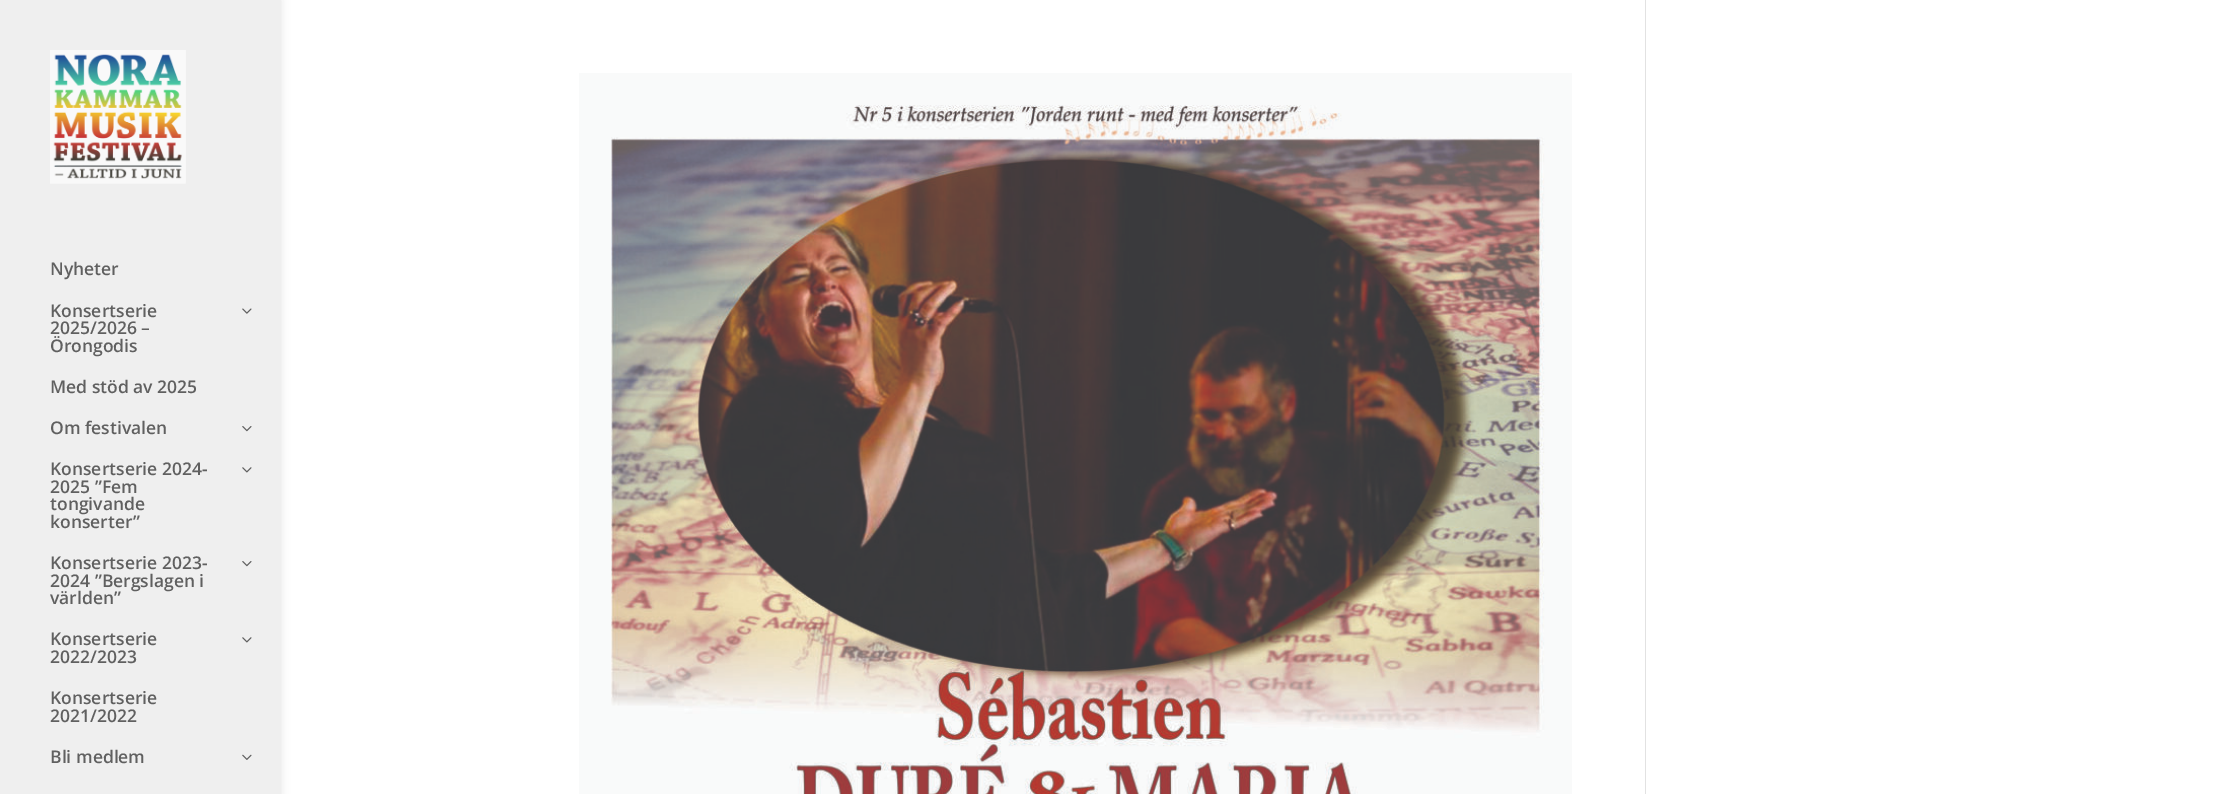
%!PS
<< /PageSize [2225 794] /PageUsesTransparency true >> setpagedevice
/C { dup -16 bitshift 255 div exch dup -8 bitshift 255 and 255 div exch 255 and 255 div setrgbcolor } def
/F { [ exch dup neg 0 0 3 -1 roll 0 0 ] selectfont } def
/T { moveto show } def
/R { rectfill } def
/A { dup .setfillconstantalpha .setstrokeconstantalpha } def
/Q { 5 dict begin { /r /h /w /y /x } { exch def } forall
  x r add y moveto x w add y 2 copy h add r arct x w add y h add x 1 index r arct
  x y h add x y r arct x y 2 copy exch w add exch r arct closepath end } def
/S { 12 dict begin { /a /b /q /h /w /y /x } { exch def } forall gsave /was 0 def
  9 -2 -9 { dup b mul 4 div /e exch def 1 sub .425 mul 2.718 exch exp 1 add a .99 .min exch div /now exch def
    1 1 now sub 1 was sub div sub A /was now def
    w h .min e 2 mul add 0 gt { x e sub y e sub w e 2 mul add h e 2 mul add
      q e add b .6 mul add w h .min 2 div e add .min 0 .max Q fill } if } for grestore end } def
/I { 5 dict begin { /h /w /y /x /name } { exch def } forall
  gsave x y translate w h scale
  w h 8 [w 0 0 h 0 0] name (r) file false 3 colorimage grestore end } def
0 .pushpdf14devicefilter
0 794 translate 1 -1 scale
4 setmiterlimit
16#FFFFFF C
0 0 2225 794 R
16#000000 C
0 0 281 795 0 4.5 .1 S
16#EFEFEF C
0 0 281 794 R
(1.rgb) 50 50 136 134 I
/OpenSans-SemiBold 17.5 F
16#606060 C
(Nyheter) 50 275 T
(Konsertserie) 50 317 T
(2.rgb) 242 308 10 6 I
(2025/2026 –) 50 334 T
(Örongodis) 50 352 T
(Med stöd av 2025) 50 393 T
(Om festivalen) 50 434 T
(3.rgb) 242 426 10 6 I
(Konsertserie 2024-) 50 475 T
(4.rgb) 242 467 10 6 I
(2025 ”Fem) 50 493 T
(tongivande) 50 510 T
(konserter”) 50 528 T
(Konsertserie 2023-) 50 569 T
(3.rgb) 242 561 10 6 I
(2024 ”Bergslagen i) 50 587 T
(världen”) 50 604 T
(Konsertserie) 50 645 T
(4.rgb) 242 637 10 6 I
(2022/2023) 50 663 T
(Konsertserie) 50 704 T
(2021/2022) 50 722 T
(Bli medlem) 50 763 T
(5.rgb) 242 754 10 6 I
(6.rgb) 579 73 993 721 I
16#E2E2E2 C
1645 0 1 794 R
.poppdf14devicefilter showpage
